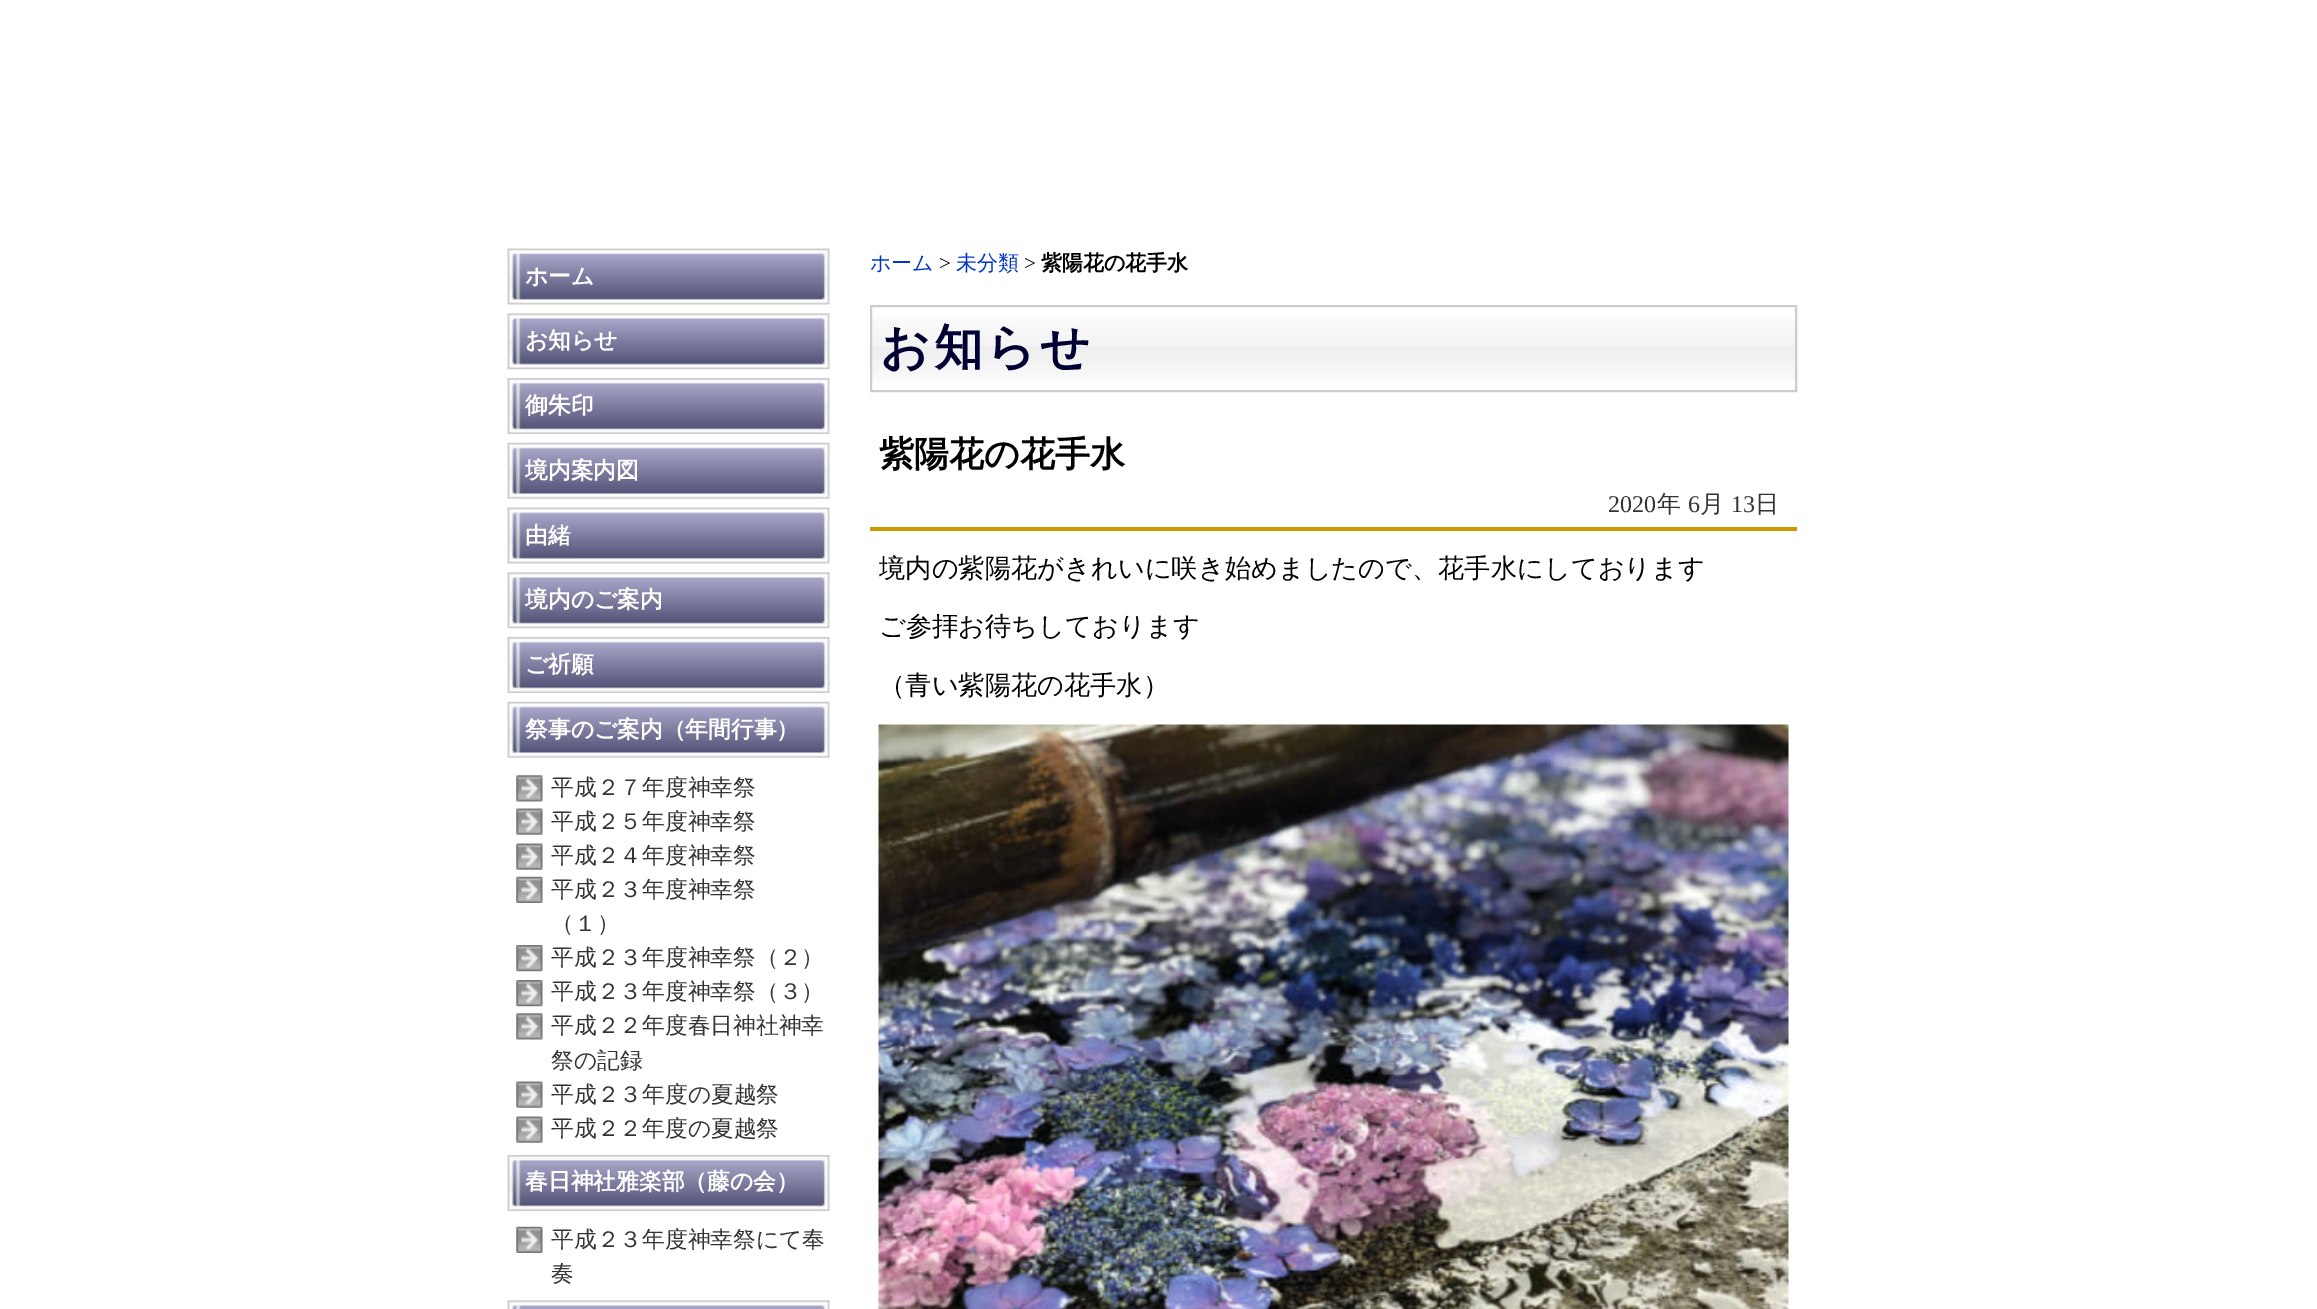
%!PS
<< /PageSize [2317 1309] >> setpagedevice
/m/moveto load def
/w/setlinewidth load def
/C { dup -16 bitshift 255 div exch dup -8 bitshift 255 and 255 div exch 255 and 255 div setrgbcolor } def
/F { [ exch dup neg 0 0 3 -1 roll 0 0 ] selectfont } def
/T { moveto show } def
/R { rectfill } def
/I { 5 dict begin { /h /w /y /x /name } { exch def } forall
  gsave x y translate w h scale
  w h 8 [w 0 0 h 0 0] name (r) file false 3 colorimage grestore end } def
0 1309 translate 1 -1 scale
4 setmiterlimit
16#FFFFFF C
0 0 2317 1309 R
(1.rgb) 507 248 323 57 I
/WenQuanYiZenHei-Bold 22.75 F
(ホーム) 525 284 T
(2.rgb) 507 313 323 57 I
(お知らせ) 525 348 T
(3.rgb) 507 378 323 56 I
(御朱印) 525 413 T
(4.rgb) 507 442 323 57 I
(境内案内図) 525 478 T
(1.rgb) 507 507 323 57 I
(由緒) 525 543 T
(2.rgb) 507 572 323 57 I
(境内のご案内) 525 607 T
(3.rgb) 507 637 323 56 I
(ご祈願) 525 672 T
(4.rgb) 507 701 323 57 I
(祭事のご案内（年間行事）) 525 737 T
(5.rgb) 516 775 27 27 I
/WenQuanYiZenHei-Medium 22.75 F
16#333333 C
(平成２７年度神幸祭) 551 795 T
(6.rgb) 516 808 27 27 I
(平成２５年度神幸祭) 551 829 T
(6.rgb) 516 843 27 27 I
(平成２４年度神幸祭) 551 863 T
(7.rgb) 516 876 27 27 I
(平成２３年度神幸祭) 551 897 T
(（１）) 551 931 T
(8.rgb) 516 945 27 27 I
(平成２３年度神幸祭（２）) 551 965 T
(8.rgb) 516 980 27 27 I
(平成２３年度神幸祭（３）) 551 999 T
(5.rgb) 516 1013 27 27 I
(平成２２年度春日神社神幸) 551 1033 T
(祭の記録) 551 1068 T
(6.rgb) 516 1081 27 27 I
(平成２３年度の夏越祭) 551 1102 T
(6.rgb) 516 1116 27 27 I
(平成２２年度の夏越祭) 551 1136 T
(3.rgb) 507 1155 323 56 I
/WenQuanYiZenHei-Bold 22.75 F
16#FFFFFF C
(春日神社雅楽部（藤の会）) 525 1189 T
(7.rgb) 516 1226 27 27 I
/WenQuanYiZenHei-Medium 22.75 F
16#333333 C
(平成２３年度神幸祭にて奉) 551 1247 T
(奏) 551 1281 T
(9.rgb) 507 1300 323 9 I
/WenQuanYiZenHei-Medium 21 F
16#0033CC C
(ホーム) 870 270 T
/LiberationSerif-Regular 21 F
16#000000 C
(>) 939 270 T
/WenQuanYiZenHei-Medium 21 F
16#0033CC C
(未分類) 956 270 T
/LiberationSerif-Regular 21 F
16#000000 C
(>) 1024 270 T
/WenQuanYiZenHei-Bold 21 F
(紫陽花の花手水) 1041 270 T
(10.rgb) 869 317 929 64 I
16#CCCCCC C
2 w
871 306 925 85 rectstroke
/WenQuanYiZenHei-Bold 49 F
16#000033 C
880 364 m 3.5 0 (お知らせ) ashow
/WenQuanYiZenHei-Bold 35 F
16#000000 C
(紫陽花の花手水) 879 466 T
16#CB9A00 C
870 527 927 4 R
/LiberationSerif-Regular 24 F
16#333333 C
(2020) 1608 512 T
/WenQuanYiZenHei-Medium 24 F
(年) 1657 512 T
/LiberationSerif-Regular 24 F
(6) 1688 512 T
/WenQuanYiZenHei-Medium 24 F
(月) 1700 512 T
/LiberationSerif-Regular 24 F
(13) 1731 512 T
/WenQuanYiZenHei-Medium 24 F
(日) 1755 512 T
/WenQuanYiZenHei-Medium 26.25 F
16#000000 C
(境内の紫陽花がきれいに咲き始めましたので、花手水にしております) 879 577 T
(ご参拝お待ちしております) 879 635 T
(（青い紫陽花の花手水）) 879 694 T
(11.rgb) 878 724 911 585 I
showpage
